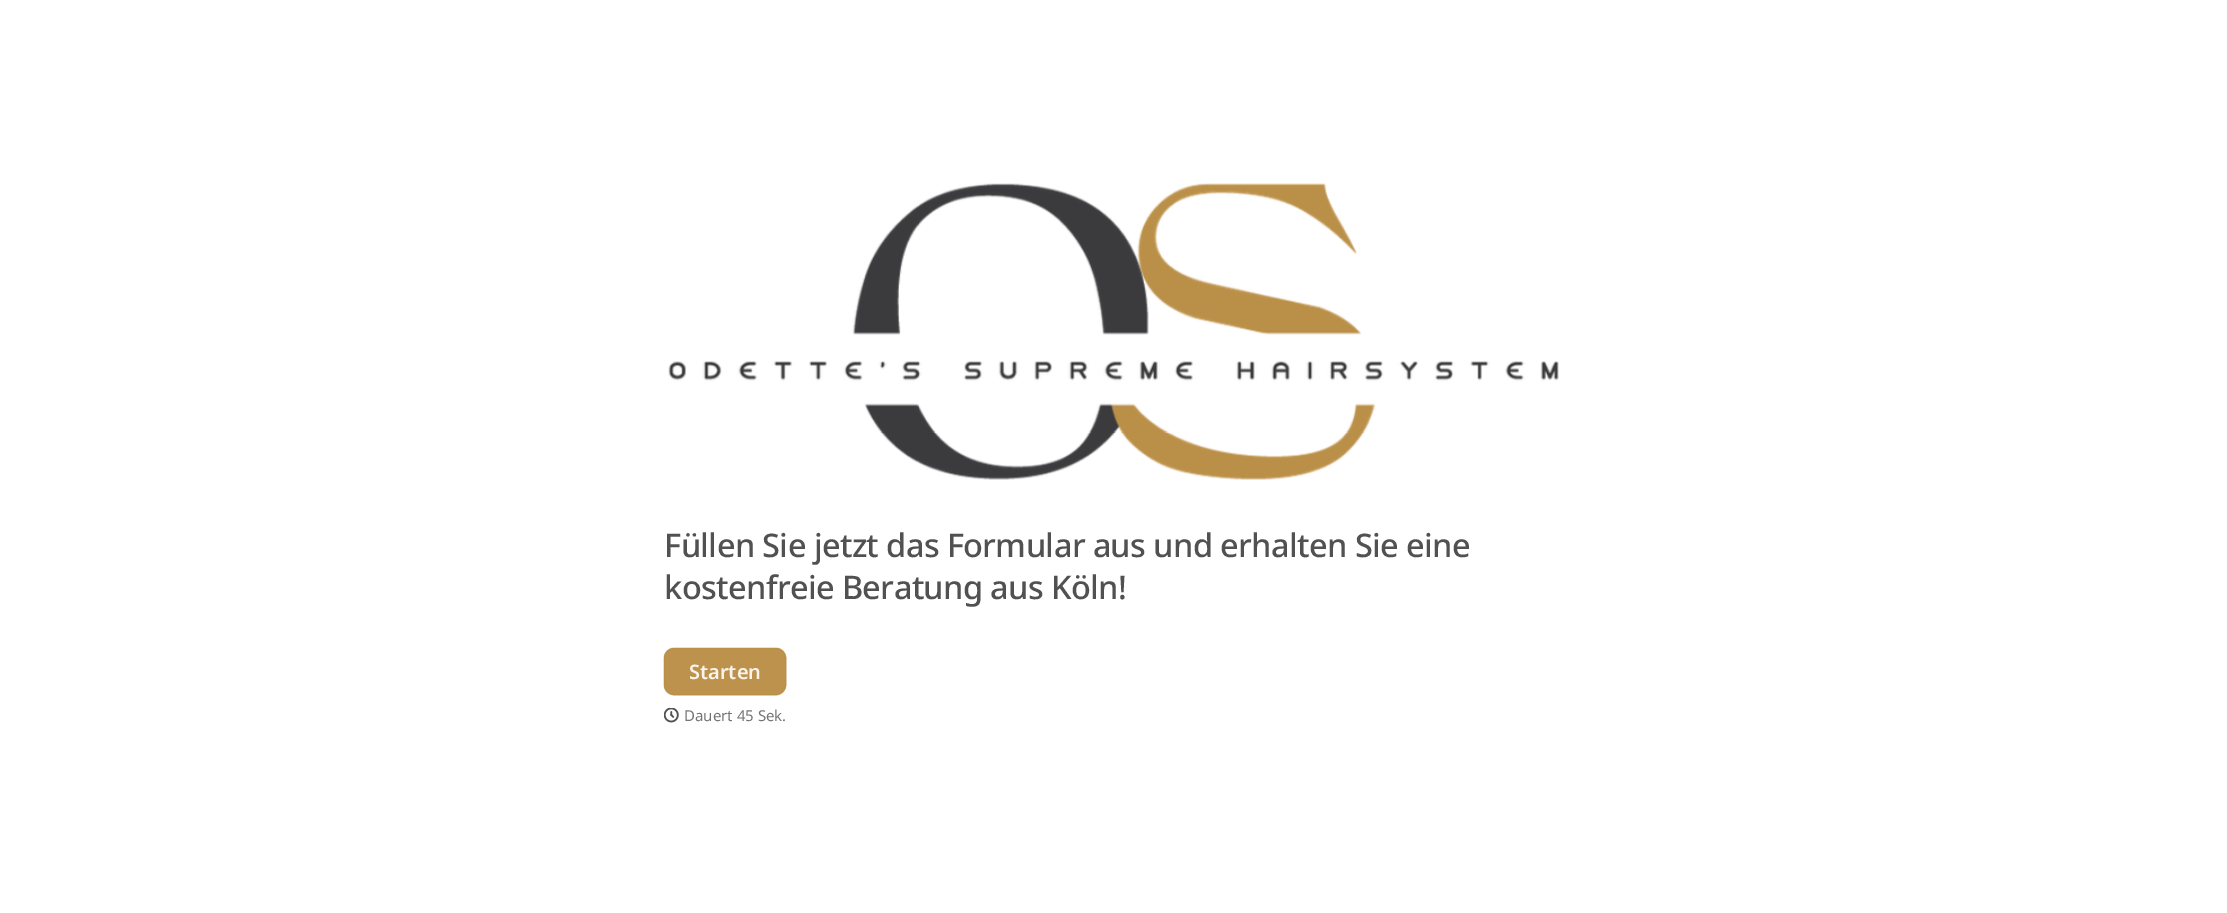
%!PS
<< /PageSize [2227 913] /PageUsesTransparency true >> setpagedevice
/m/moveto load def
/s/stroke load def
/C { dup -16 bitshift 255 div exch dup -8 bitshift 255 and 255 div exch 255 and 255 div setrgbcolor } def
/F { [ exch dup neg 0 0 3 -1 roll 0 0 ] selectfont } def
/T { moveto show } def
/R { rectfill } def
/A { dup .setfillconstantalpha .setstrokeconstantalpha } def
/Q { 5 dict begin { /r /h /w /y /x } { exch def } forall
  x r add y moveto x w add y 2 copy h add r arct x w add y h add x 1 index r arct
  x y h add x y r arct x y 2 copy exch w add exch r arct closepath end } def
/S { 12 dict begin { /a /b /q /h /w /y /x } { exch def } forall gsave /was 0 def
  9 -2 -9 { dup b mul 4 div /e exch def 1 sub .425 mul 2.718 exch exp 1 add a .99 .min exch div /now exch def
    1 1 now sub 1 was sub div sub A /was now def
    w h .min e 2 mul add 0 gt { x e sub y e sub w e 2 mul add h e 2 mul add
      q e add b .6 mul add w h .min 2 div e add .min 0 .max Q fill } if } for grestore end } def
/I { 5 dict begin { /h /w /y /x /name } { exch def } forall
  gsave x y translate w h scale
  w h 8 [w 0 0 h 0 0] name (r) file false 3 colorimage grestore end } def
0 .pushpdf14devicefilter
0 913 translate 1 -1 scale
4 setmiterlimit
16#FFFFFF C
0 0 2227 913 R
(1.rgb) 668 183 891 297 I
/NotoSans-Medium 32.5 F
16#515151 C
664 557 m -.62 0 (Füllen Sie jetzt das Formular aus und erhalten Sie eine) ashow
664 599 m -.62 0 (kostenfreie Beratung aus Köln!) ashow
16#BA8F48 C
664.5 648.5 121 46 9.5 Q s
664 648 122 47 10 .5 1 S
/NotoSans-SemiBold 20 F
16#F8F4ED C
(Starten) 689 679 T
(2.rgb) 664 708 15 15 I
/NotoSans-Regular 15 F
16#747474 C
(Dauert 45 Sek.) 684 721 T
.poppdf14devicefilter showpage
